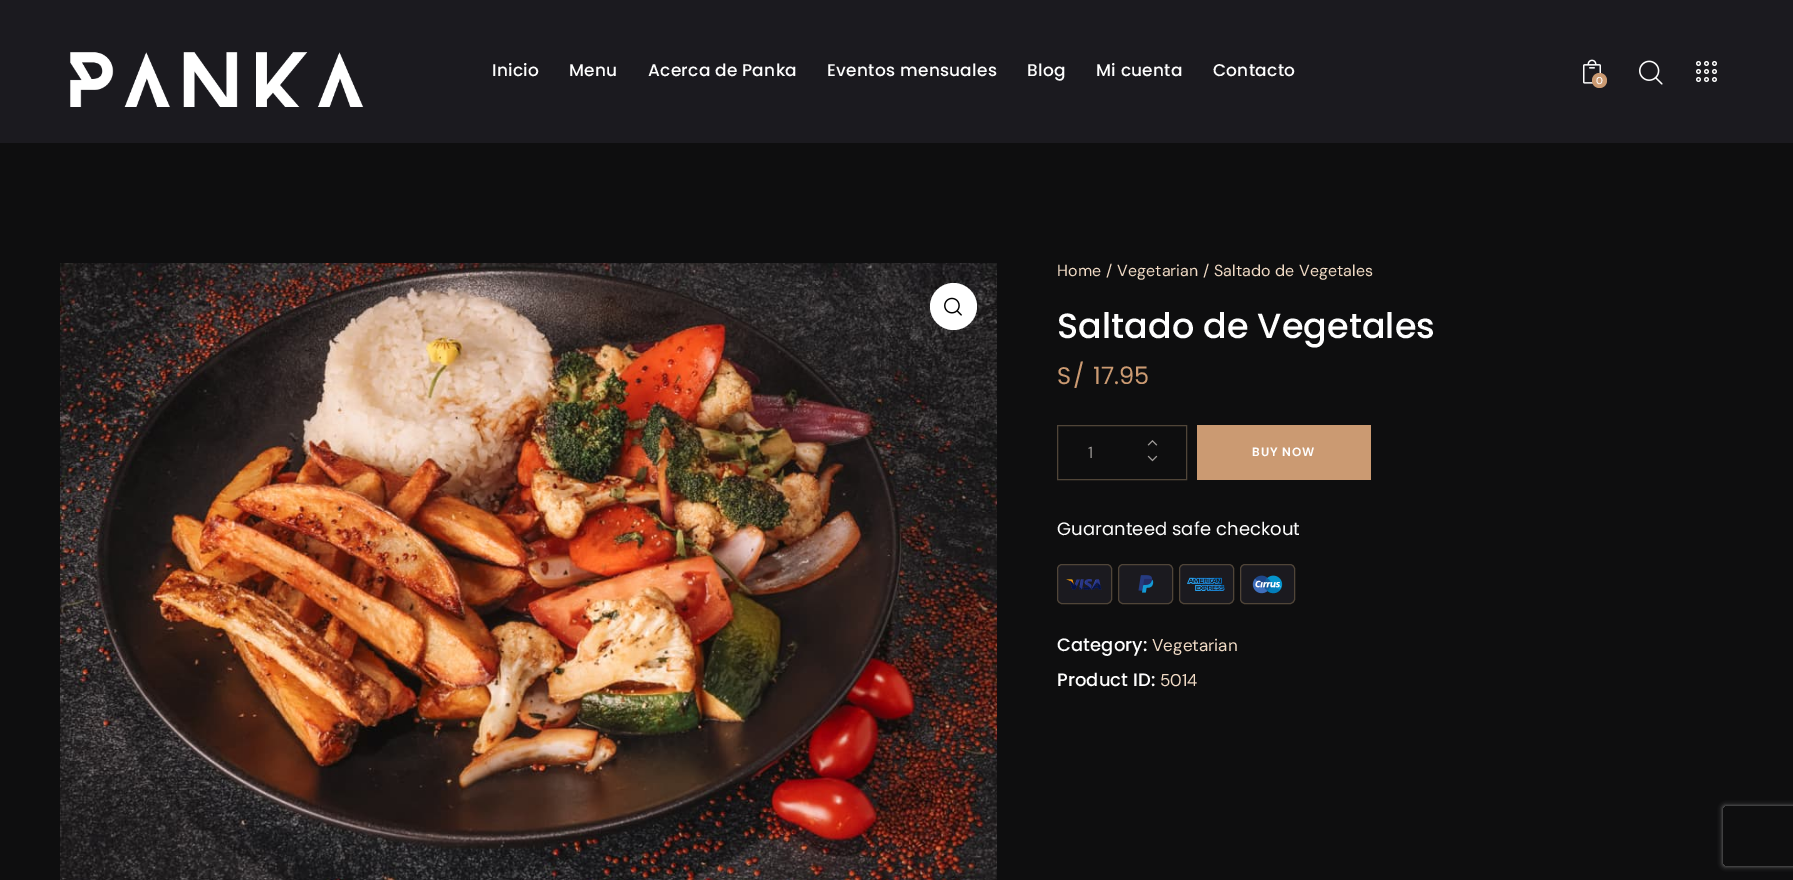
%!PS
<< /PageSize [1793 880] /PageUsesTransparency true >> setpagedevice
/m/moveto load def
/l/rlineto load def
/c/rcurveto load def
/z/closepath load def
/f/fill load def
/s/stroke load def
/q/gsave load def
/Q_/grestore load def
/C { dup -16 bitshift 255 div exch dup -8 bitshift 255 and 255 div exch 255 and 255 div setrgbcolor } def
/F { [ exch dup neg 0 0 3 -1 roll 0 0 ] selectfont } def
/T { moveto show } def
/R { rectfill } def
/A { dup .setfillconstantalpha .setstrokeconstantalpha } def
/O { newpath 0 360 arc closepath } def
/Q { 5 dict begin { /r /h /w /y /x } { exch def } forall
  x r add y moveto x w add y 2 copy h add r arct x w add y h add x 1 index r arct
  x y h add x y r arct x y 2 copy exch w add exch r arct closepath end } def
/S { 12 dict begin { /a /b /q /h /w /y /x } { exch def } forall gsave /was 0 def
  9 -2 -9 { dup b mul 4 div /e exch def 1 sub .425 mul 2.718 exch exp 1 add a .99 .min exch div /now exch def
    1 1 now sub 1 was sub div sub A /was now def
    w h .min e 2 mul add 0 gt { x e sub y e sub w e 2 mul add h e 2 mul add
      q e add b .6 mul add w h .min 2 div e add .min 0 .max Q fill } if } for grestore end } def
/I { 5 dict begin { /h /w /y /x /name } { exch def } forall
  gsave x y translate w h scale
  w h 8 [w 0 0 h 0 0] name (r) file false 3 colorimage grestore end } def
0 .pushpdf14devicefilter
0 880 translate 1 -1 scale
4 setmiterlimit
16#0E0E0F C
0 0 1793 880 R
16#1B1A1F C
0 0 1793 143 R
(1.rgb) 70 52 294 55 I
/Poppins-Medium 17 F
16#FEFEFE C
492 76 m .25 0 (Inicio) ashow
569 76 m .25 0 (Menu) ashow
648 76 m .25 0 (Acerca de Panka) ashow
827 76 m .25 0 (Eventos mensuales) ashow
1027 76 m .25 0 (Blog) ashow
1096 76 m .25 0 (Mi cuenta) ashow
1213 76 m .25 0 (Contacto) ashow
(2.rgb) 1583 59 18 25 I
16#CB9A72 C
1599.5 80.5 7.5 O f
/DMSans-Medium 10 F
16#FEFEFE C
(0) 1596 84 T
(3.rgb) 1639 60 24 25 I
(4.rgb) 1696 61 21 21 I
(5.rgb) 60 263 937 617 I
16#FFFFFF C
953.5 306.5 23.5 O f
(6.rgb) 944 297 18 19 I
/DMSans-Regular 16 F
16#F1DBC5 C
1057 276 m .1 0 (Home) ashow
1106 276 m .1 0 (/) ashow
1117 276 m .1 0 (Vegetarian) ashow
1203 276 m .1 0 (/) ashow
1214 276 m .1 0 (Saltado de Vegetales) ashow
/Poppins-Medium 35 F
16#FEFEFE C
(Saltado de Vegetales) 1057 338 T
/Poppins-Regular 24 F
16#CB9A72 C
1057 384 m 2 0 (S/) ashow
1093 384 m .1 0 (17.95) ashow
16#504538 C
1057.5 425.5 129 54 rectstroke
(7.rgb) 1147 440 11 6 I
/DMSans-Regular 16 F
16#A09C9A C
(1) 1088 458 T
(8.rgb) 1147 455 11 7 I
16#CB9A72 C
1197 425 174 55 R
/DMSans-Bold 12 F
16#FEFEFE C
1252 456 m 1 0 (BUY NOW) ashow
/Poppins-Regular 18 F
1057 535 m .1 0 (Guaranteed safe checkout) ashow
16#1B1A1F C
1057.5 564.5 54 39 4.5 Q q f Q_
16#504538 C
s
(9.rgb) 1066 579 36 11 I
16#1B1A1F C
1118.5 564.5 54 39 4.5 Q q f Q_
16#504538 C
s
(10.rgb) 1138 575 16 18 I
16#1B1A1F C
1179.5 564.5 54 39 4.5 Q q f Q_
16#504538 C
s
(11.rgb) 1187 577 38 14 I
16#1B1A1F C
1240.5 564.5 54 39 4.5 Q q f Q_
16#504538 C
s
(12.rgb) 1252 575 31 19 I
/Poppins-Medium 18 F
16#FEFEFE C
1057 651 m .1 0 (Category:) ashow
/DMSans-Regular 17 F
16#F1DBC5 C
(Vegetarian) 1152 651 T
/Poppins-Medium 18 F
16#FEFEFE C
1057 686 m .1 0 (Product ID:) ashow
/DMSans-Regular 17 F
16#F1DBC5 C
(5014) 1160 686 T
q
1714 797 m 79 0 l 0 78 l -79 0 l z 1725 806 m 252 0 l 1 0 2 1 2 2 c 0 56 l 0 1 -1 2 -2 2 c -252 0 l -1 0 -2 -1 -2 -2 c 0 -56 l 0 -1 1 -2 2 -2 c z eoclip newpath
16#808080 C
1723 806 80 60 2 2.5 1 S
Q_
.poppdf14devicefilter showpage
